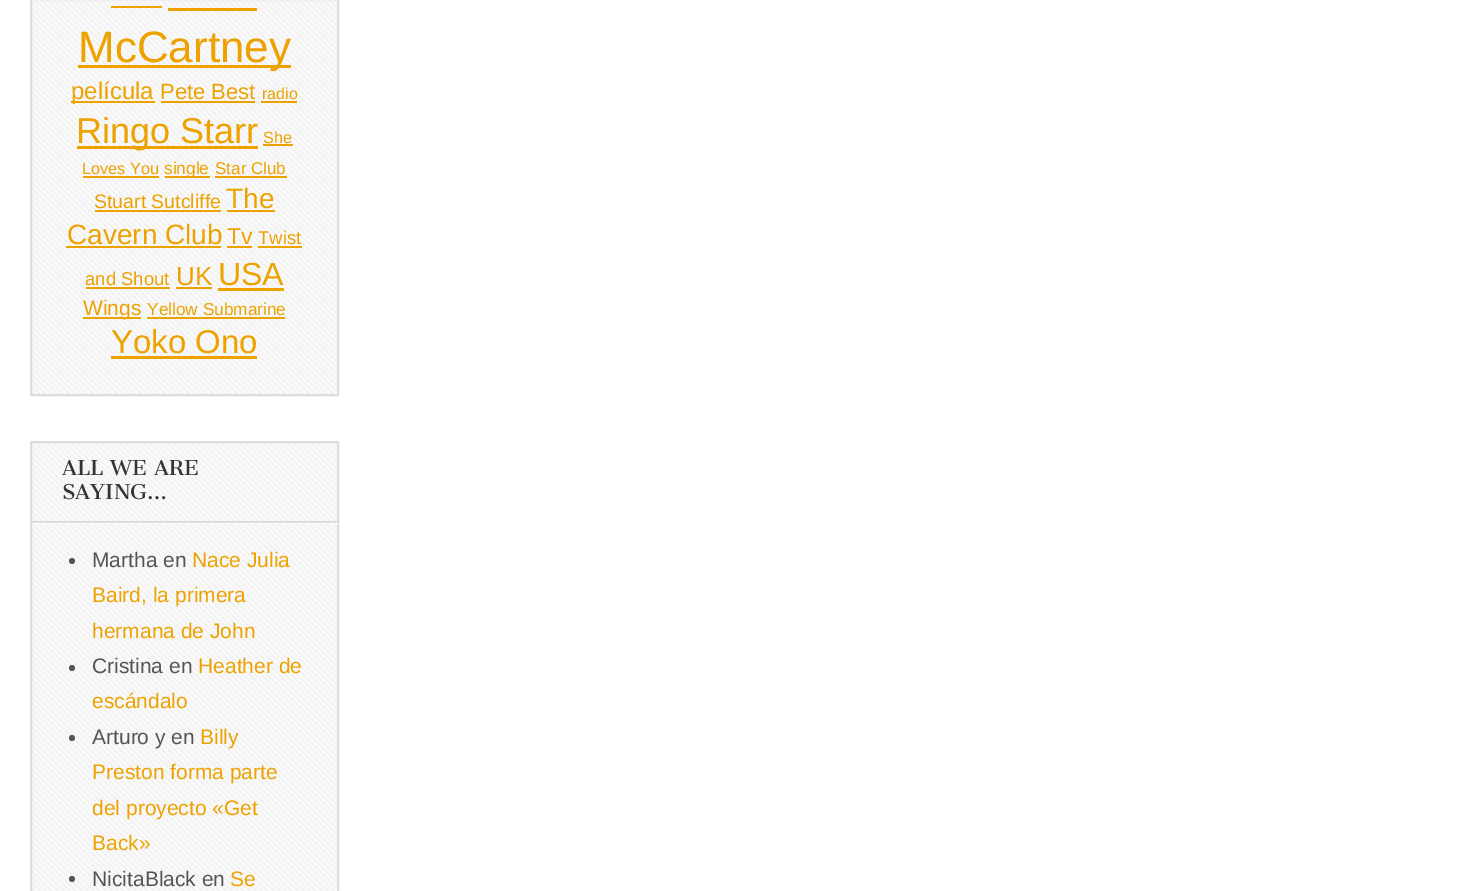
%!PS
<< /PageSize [1473 891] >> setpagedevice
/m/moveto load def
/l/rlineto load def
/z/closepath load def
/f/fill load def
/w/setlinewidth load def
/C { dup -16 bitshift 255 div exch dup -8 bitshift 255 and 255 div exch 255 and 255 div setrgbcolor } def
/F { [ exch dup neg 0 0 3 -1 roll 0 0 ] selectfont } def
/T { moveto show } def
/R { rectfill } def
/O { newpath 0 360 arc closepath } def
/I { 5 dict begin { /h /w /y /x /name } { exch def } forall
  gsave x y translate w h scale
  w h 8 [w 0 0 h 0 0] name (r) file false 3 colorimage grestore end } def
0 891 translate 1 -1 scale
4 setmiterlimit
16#FFFFFF C
0 0 1473 891 R
(1.rgb) 32 0 305 394 I
16#DDDDDD C
2 w
31 -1 307 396 rectstroke
16#EDA200 C
111 6 51 2 R
78 65 213 3 R
/LiberationSans-Regular 44 F
(McCartney) 78 62 T
168 8 89 3 R
71 101 84 2 R
/LiberationSans-Regular 24 F
(película) 71 99 T
/LiberationSans-Regular 22 F
(Pete Best) 160 99 T
161 101 94 2 R
/LiberationSans-Regular 16 F
(radio) 262 99 T
261 101 36 2 R
77 146 181 3 R
/LiberationSans-Regular 36 F
(Ringo Starr) 76 143 T
/LiberationSans-Regular 16.25 F
(She) 263 143 T
263 144 30 2 R
(Loves You) 82 174 T
83 176 76 2 R
165 176 45 2 R
/LiberationSans-Regular 17.25 F
(single) 164 174 T
/LiberationSans-Regular 17 F
(Star Club) 215 174 T
215 176 72 2 R
/LiberationSans-Regular 19.5 F
(Stuart Sutcliffe) 94 208 T
95 210 126 2 R
/LiberationSans-Regular 28 F
(The) 226 208 T
227 210 48 2 R
(Cavern Club) 67 244 T
66 246 155 2 R
/LiberationSans-Regular 23 F
(Tv) 227 244 T
227 246 25 2 R
/LiberationSans-Regular 18.5 F
(Twist) 258 244 T
258 246 44 2 R
(and Shout) 85 285 T
86 287 84 2 R
/LiberationSans-Regular 26 F
(UK) 176 285 T
176 287 36 2 R
/LiberationSans-Regular 32 F
(USA) 218 285 T
218 288 66 3 R
83 317 58 2 R
/LiberationSans-Regular 21 F
(Wings) 83 315 T
/LiberationSans-Regular 17.25 F
(Yellow Submarine) 147 315 T
147 317 138 2 R
/LiberationSans-Regular 33 F
(Yoko Ono) 111 353 T
111 356 146 3 R
(2.rgb) 32 443 305 448 I
16#DDDDDD C
31 442 307 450 rectstroke
16#FFFFFF C
32 522 m 0 2 l 306 0 l 0 -80 l 0 78 l z f
16#DDDDDD C
32 521 306 2 R
/CantataOne-Regular 20 F
16#333333 C
(ALL WE ARE) 62 475 T
(SAYING…) 62 499 T
16#555555 C
72 561 3 O f
/LiberationSans-Regular 21 F
(Martha en) 92 567 T
16#EDA200 C
(Nace Julia) 192 567 T
(Baird, la primera) 92 602 T
(hermana de John) 92 638 T
16#555555 C
72 668 3 O f
(Cristina en) 92 673 T
16#EDA200 C
(Heather de) 198 673 T
(escándalo) 92 708 T
16#555555 C
72 738 3 O f
(Arturo y en) 92 744 T
16#EDA200 C
(Billy) 200 744 T
(Preston forma parte) 92 779 T
(del proyecto «Get) 92 815 T
(Back») 92 850 T
16#555555 C
72 879 3 O f
(NicitaBlack en) 92 886 T
16#EDA200 C
(Se) 230 886 T
showpage
